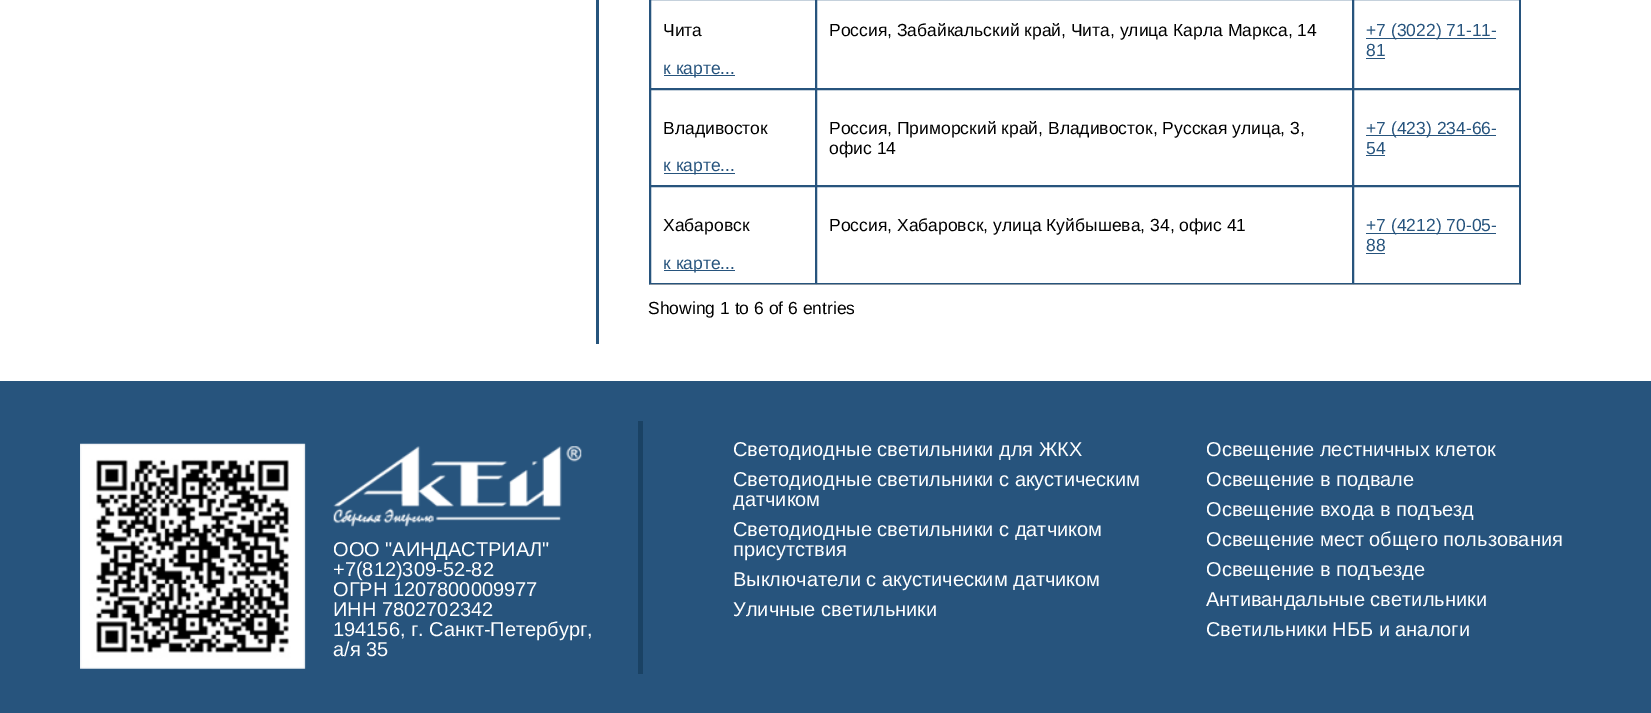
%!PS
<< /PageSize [1651 713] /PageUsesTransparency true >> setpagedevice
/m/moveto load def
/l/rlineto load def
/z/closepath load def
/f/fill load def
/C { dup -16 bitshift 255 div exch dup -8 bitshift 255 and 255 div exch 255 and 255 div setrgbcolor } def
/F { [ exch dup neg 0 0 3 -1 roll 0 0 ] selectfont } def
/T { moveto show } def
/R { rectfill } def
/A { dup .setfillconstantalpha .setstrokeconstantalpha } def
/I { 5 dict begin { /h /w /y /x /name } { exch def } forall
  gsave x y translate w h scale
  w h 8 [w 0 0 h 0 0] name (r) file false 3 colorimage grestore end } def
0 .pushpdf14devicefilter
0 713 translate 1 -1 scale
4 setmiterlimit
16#FFFFFF C
0 0 1651 713 R
16#26547C C
596 0 3 344 R
16#27547D C
1521 -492 m 0 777 l -1 -1 l 0 -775 l z f
0.3 A
16#000000 C
1521 285 m -872 0 l 1 -1 l 870 0 l z f
1 A
16#27547D C
649 285 m 0 -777 l 1 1 l 0 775 l z f
650.5 -.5 165 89 rectstroke
/LiberationSans-Regular 17.5 F
16#000000 C
(Чита) 663 36 T
16#27547D C
664 75 71 1 R
(к карте...) 663 74 T
816.5 -.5 536 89 rectstroke
16#000000 C
(Россия, Забайкальский край, Чита, улица Карла Маркса, 14) 829 36 T
16#27547D C
1353.5 -.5 166 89 rectstroke
1366 38 130 1 R
(+7 \(3022\) 71-11-) 1366 36 T
(81) 1366 56 T
1366 58 19 1 R
650.5 89.5 165 96 rectstroke
16#000000 C
(Владивосток) 663 134 T
16#27547D C
664 173 71 1 R
(к карте...) 663 171 T
816.5 89.5 536 96 rectstroke
16#000000 C
(Россия, Приморский край, Владивосток, Русская улица, 3,) 829 134 T
(офис 14) 829 154 T
16#27547D C
1353.5 89.5 166 96 rectstroke
1366 135 130 1 R
(+7 \(423\) 234-66-) 1366 134 T
(54) 1366 154 T
1366 155 19 1 R
650.5 186.5 165 97 rectstroke
16#000000 C
(Хабаровск) 663 231 T
16#27547D C
664 270 71 1 R
(к карте...) 663 269 T
816.5 186.5 536 97 rectstroke
16#000000 C
(Россия, Хабаровск, улица Куйбышева, 34, офис 41) 829 231 T
16#27547D C
1353.5 186.5 166 97 rectstroke
1366 233 130 1 R
(+7 \(4212\) 70-05-) 1366 231 T
(88) 1366 251 T
1366 253 19 1 R
16#000000 C
(Showing 1 to 6 of 6 entries) 648 314 T
16#27547D C
0 381 1651 332 R
(1.rgb) 80 443 226 226 I
16#1A4264 C
638 421 5 253 R
(2.rgb) 333 446 249 81 I
/LiberationSans-Regular 20 F
16#FFFFFF C
(ООО "АИНДАСТРИАЛ") 333 556 T
(+7\(812\)309-52-82) 333 576 T
(ОГРН 1207800009977) 333 596 T
(ИНН 7802702342) 333 616 T
(194156, г. Санкт-Петербург,) 333 636 T
(а/я 35) 333 656 T
(Светодиодные светильники для ЖКХ) 733 456 T
(Светодиодные светильники с акустическим) 733 486 T
(датчиком) 733 506 T
(Светодиодные светильники с датчиком) 733 536 T
(присутствия) 733 556 T
(Выключатели с акустическим датчиком) 733 586 T
(Уличные светильники) 733 616 T
(Освещение лестничных клеток) 1206 456 T
(Освещение в подвале) 1206 486 T
(Освещение входа в подъезд) 1206 516 T
(Освещение мест общего пользования) 1206 546 T
(Освещение в подъезде) 1206 576 T
(Антивандальные светильники) 1206 606 T
(Светильники НББ и аналоги) 1206 636 T
.poppdf14devicefilter showpage
